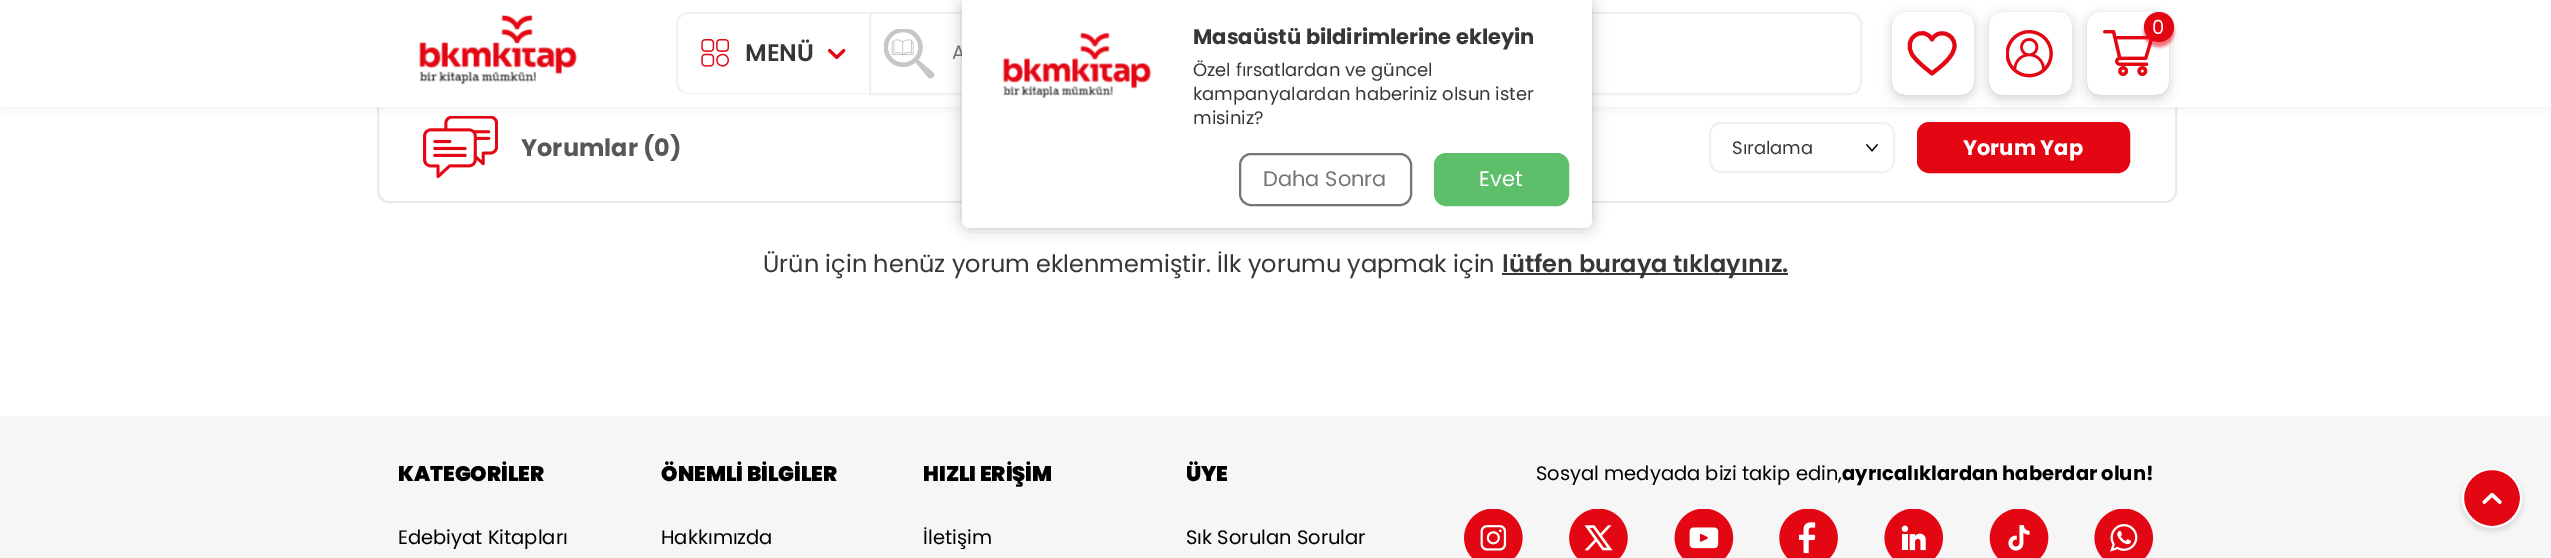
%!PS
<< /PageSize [2551 558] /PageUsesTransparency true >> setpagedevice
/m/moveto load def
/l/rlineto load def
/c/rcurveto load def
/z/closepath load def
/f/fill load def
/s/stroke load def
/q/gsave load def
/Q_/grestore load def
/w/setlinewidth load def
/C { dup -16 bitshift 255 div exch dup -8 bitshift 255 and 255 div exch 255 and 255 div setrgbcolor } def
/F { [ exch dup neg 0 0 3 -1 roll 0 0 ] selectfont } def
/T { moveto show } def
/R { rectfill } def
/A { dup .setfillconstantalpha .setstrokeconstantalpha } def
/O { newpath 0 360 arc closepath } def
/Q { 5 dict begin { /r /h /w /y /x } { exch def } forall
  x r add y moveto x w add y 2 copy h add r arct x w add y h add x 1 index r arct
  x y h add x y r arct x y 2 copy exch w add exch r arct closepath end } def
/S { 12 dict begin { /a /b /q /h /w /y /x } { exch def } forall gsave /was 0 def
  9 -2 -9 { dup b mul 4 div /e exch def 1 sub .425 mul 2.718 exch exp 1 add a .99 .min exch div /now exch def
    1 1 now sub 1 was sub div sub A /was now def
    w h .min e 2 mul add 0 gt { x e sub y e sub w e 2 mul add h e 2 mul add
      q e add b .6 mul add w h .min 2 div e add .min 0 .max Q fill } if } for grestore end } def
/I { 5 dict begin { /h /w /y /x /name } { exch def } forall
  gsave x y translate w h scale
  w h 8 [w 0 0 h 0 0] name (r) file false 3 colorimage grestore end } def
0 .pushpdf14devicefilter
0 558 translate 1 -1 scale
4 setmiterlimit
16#FFFFFF C
0 0 2551 558 R
16#EAEAEA C
2 w
378 93 1798 109 11 Q s
(9.rgb) 423 116 75 62 I
16#000000 C
0 3 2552 107 0 3 .06 S
16#FFFFFF C
0 0 2551 107 R
(1.rgb) 419 14 158 71 I
q
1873 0 m 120 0 l 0 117 l -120 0 l z 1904 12 m 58 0 l 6.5 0 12 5.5 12 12 c 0 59 l 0 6.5 -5.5 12 -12 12 c -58 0 l -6.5 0 -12 -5.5 -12 -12 c 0 -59 l 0 -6.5 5.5 -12 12 -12 c z eoclip newpath
16#A0A0A0 C
1892 15 82 83 12 6 .5 S
Q_
16#E30613 C
4 w
1 setlinecap
1 setlinejoin
1954.5 45 m -.5 -12 -17 -16.5 -22.5 -5.5 c -8 -15 -30.5 -1.5 -19.5 15.5 c 4.5 7 13 13 19.5 18.5 c 8 -6.5 23 -17 22.5 -28.5 c z s
q
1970 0 m 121 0 l 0 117 l -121 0 l z 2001 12 m 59 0 l 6.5 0 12 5.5 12 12 c 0 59 l 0 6.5 -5.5 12 -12 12 c -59 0 l -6.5 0 -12 -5.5 -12 -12 c 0 -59 l 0 -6.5 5.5 -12 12 -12 c z eoclip newpath
16#A0A0A0 C
1989 15 83 83 12 6 .5 S
Q_
(2.rgb) 2006 30 47 48 I
q
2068 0 m 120 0 l 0 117 l -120 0 l z 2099 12 m 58 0 l 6.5 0 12 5.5 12 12 c 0 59 l 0 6.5 -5.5 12 -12 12 c -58 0 l -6.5 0 -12 -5.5 -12 -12 c 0 -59 l 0 -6.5 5.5 -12 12 -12 c z eoclip newpath
16#A0A0A0 C
2087 15 82 83 12 6 .5 S
Q_
(3.rgb) 2103 30 50 46 I
2144 17 30 30 15 1.5 .56 S
2159 27 15 O f
/Poppins-Regular 19.5 F
16#FFFFFF C
(0) 2152 34 T
16#F0F0F0 C
688 12 m 180 0 l 0 82 l -180 0 l -6 0 -12 -5 -12 -12 c 0 -58 l 0 -7 6 -12 12 -12 c z 688 14 m 180 0 l 0 79 l -180 0 l -5 0 -10 -5 -10 -11 c 0 -58 l 0 -6 5 -10 10 -10 c z eofill
(4.rgb) 701 39 28 28 I
/Poppins-SemiBold 24 F
16#373738 C
(MENÜ) 745 61 T
(5.rgb) 828 48 18 12 I
16#F0F0F0 C
2 w
0 setlinecap
0 setlinejoin
870 13 m 980 0 l 6 0 11 5 11 11 c 0 59 l 0 6 -5 11 -11 11 c -980 0 l z s
(6.rgb) 884 29 51 50 I
/Poppins-Regular 19.5 F
16#757575 C
(A) 952 59 T
16#F6F6F6 C
0 416 2551 142 R
16#000000 C
2462 471 60 60 30 3 .13 S
16#E30613 C
2492 498 29 O q f Q_
16#FFFFFF C
s
(7.rgb) 2482 492 20 13 I
16#282828 C
962 0 630 228 8 7.5 .3 S
16#FFFFFF C
962 0 m 630 0 l 0 220 l 0 4.5 -3.5 8 -8 8 c -614 0 l -4.5 0 -8 -3.5 -8 -8 c z f
(8.rgb) 1002 32 150 67 I
/Poppins-Bold 21 F
16#373738 C
(Masaüstü bildirimlerine ekleyin) 1193 44 T
/Poppins-Regular 18 F
(Özel fırsatlardan ve güncel) 1193 76 T
(kampanyalardan haberiniz olsun ister) 1193 100 T
(misiniz?) 1193 124 T
16#747474 C
1240 154 171 51 11 Q s
/Poppins-Regular 21 F
16#757575 C
(Daha Sonra) 1263 186 T
16#5DBF6A C
1435 154 133 51 11 Q q f Q_
s
16#FFFFFF C
(Evet) 1479 186 T
/Poppins-Bold 24 F
16#575756 C
(Yorumlar \(0\)) 521 156 T
(10.rgb) 1866 144 12 8 I
16#F0F0F0 C
1710 123 184 49 11 Q s
/Poppins-Regular 18 F
16#373738 C
(Sıralama) 1732 154 T
16#E30613 C
1918 123 211 49 11 Q q f Q_
s
/Poppins-Bold 21 F
16#FFFFFF C
(Yorum Yap) 1963 155 T
/Poppins-Regular 24 F
16#373738 C
(Ürün için henüz yorum eklenmemiştir. İlk yorumu yapmak için) 763 272 T
1502 273 286 2 R
/Poppins-SemiBold 24 F
(lütfen buraya tıklayınız.) 1502 272 T
/Poppins-Black 21 F
16#000000 C
(KATEGORİLER) 398 481 T
/Poppins-Regular 19.5 F
(Edebiyat Kitapları) 398 544 T
/Poppins-Black 21 F
(ÖNEMLİ BİLGİLER) 661 481 T
/Poppins-Regular 19.5 F
(Hakkımızda) 661 544 T
/Poppins-Black 21 F
(HIZLI ERİŞİM) 923 481 T
/Poppins-Regular 19.5 F
(İletişim) 923 544 T
/Poppins-Black 21 F
(ÜYE) 1186 481 T
/Poppins-Regular 19.5 F
(Sık Sorulan Sorular) 1186 544 T
(Sosyal medyada bizi takip edin,) 1536 480 T
/Poppins-Bold 19.5 F
(ayrıcalıklardan haberdar olun!) 1842 480 T
(11.rgb) 1464 509 59 49 I
(12.rgb) 1569 509 59 49 I
(13.rgb) 1674 509 60 49 I
(14.rgb) 1779 509 59 49 I
(15.rgb) 1884 509 60 49 I
(16.rgb) 1989 509 60 49 I
(17.rgb) 2094 509 60 49 I
.poppdf14devicefilter showpage
